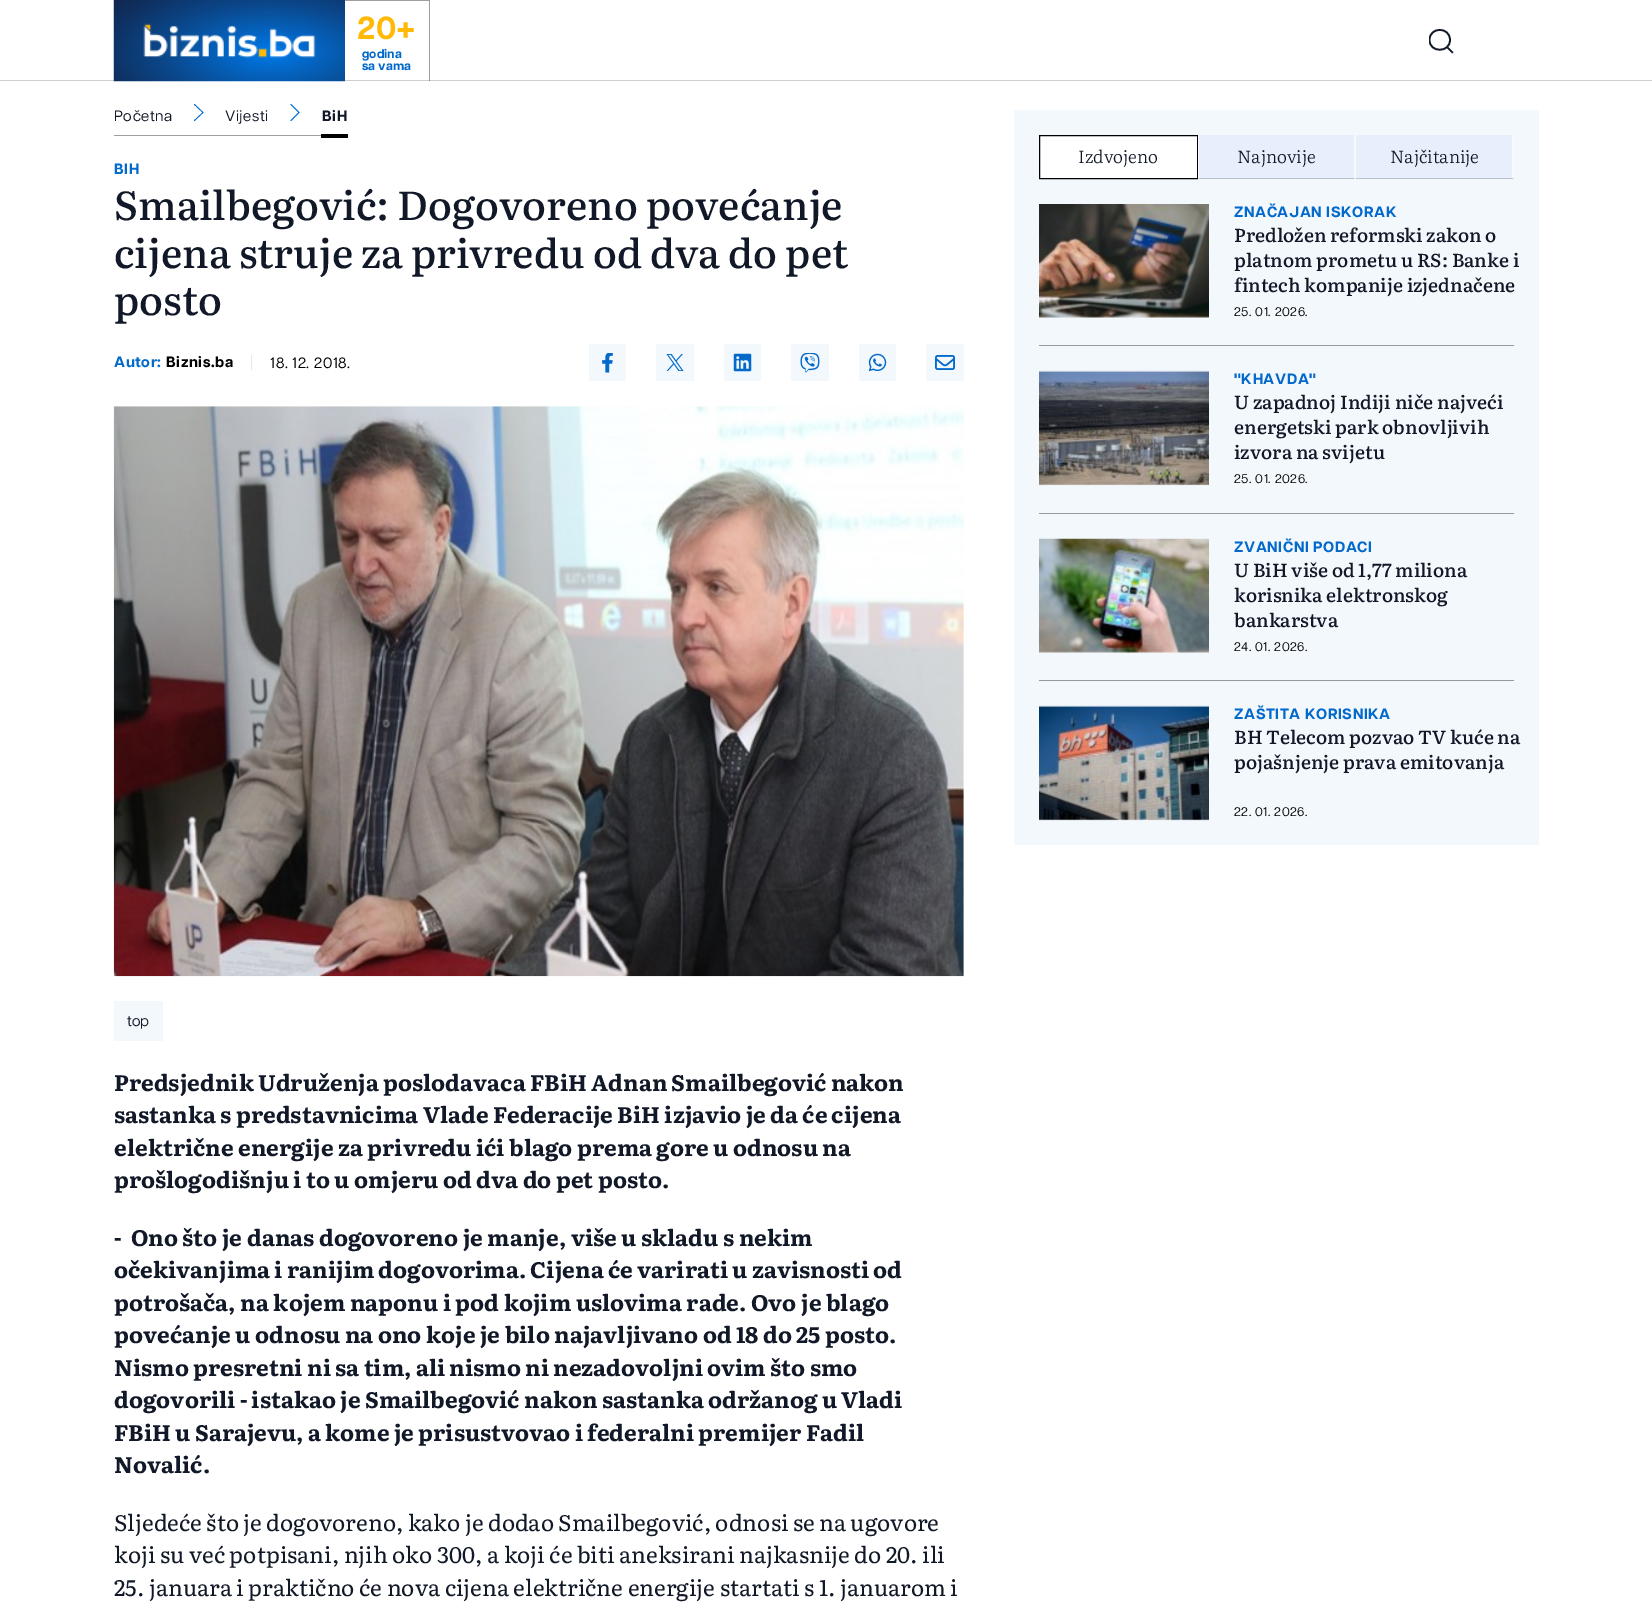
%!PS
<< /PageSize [1652 1607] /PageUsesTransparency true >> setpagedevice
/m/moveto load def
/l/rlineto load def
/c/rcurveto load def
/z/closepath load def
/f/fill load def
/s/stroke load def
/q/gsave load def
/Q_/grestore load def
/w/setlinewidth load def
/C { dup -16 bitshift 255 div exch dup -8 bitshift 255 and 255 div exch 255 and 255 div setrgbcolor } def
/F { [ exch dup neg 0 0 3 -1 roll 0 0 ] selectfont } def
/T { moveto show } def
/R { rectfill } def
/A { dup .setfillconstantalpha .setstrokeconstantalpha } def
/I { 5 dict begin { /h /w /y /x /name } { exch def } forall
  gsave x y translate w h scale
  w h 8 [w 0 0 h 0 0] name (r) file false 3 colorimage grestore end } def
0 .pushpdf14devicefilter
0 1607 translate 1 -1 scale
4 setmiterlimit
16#FFFFFF C
0 0 1652 1607 R
16#CFCFCF C
0 80 1652 1 R
(1.rgb) 113 0 232 82 I
16#9E9E9E C
345 0 m 85 0 l -1 1 l -84 0 l z f
0.38 A
16#000000 C
430 0 m 0 81 l -1 0 l 0 -80 l z f
/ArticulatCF-Bold 32 F
1 A
16#FFBA08 C
(20+) 357 39 T
/ArticulatCF-Bold 12.5 F
16#036ACB C
(godina) 362 58 T
(sa vama) 362 70 T
q
1429 29 25 25 rectclip
16#111827 C
1.7 w
1 setlinecap
1 setlinejoin
1447.5 47.5 m 5 5 l 1429.5 40 m 0 13 20.5 13 20.5 0 c 0 -13.5 -20.5 -13.5 -20.5 0 c z s
Q_
16#9E9E9E C
114 135 207 1 R
/ArticulatCF-Regular 15 F
16#111827 C
114 121 m .6 0 (Početna) ashow
16#036ACB C
.8 w
1 setlinecap
1 setlinejoin
194.5 104.5 m 8.5 8 l -8.5 8 l s
16#111827 C
225 121 m .6 0 (Vijesti) ashow
16#036ACB C
291 104.5 m 8 8 l -8 8 l s
16#000000 C
321 134 27 4 R
/ArticulatCF-Bold 15 F
16#111827 C
322 121 m .6 0 (BiH) ashow
16#036ACB C
114 174 m .6 0 (BIH) ashow
/Literata-Medium 40 F
16#111827 C
(Smailbegovi) 114 220 T
/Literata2-Medium 40 F
(ć) 356 220 T
/Literata-Medium 40 F
(: Dogovoreno pove) 376 220 T
/Literata2-Medium 40 F
(ć) 740 220 T
/Literata-Medium 40 F
(anje) 760 220 T
(cijena struje za privredu od dva do pet) 114 268 T
(posto) 114 315 T
/ArticulatCF-Bold 15 F
16#036ACB C
114 367 m .6 0 (Autor:) ashow
16#000000 C
166 367 m .6 0 (Biznis.ba) ashow
16#E5E7EB C
251 355 1 15 R
/ArticulatCF-Regular 15 F
16#000000 C
270 368 m .6 0 (18. 12. 2018.) ashow
16#F2F8FC C
589 344 37 37 R
(2.rgb) 602 353 11 20 I
656 344 38 37 R
(3.rgb) 666 354 18 17 I
724 344 37 37 R
(4.rgb) 733 353 19 19 I
791 344 38 37 R
(5.rgb) 800 353 20 20 I
859 344 37 37 R
(6.rgb) 868 353 19 19 I
926 344 38 37 R
(7.rgb) 935 355 20 15 I
16#FFFCF3 C
114 406 850 570 R
(8.rgb) 113 406 851 571 I
16#F2F8FC C
114 1001 49 40 R
16#111827 C
(top) 127 1026 T
/Literata-Bold 22.5 F
114 1091 m -.25 0 32 (Predsjednik Udruženja poslodavaca FBiH Adnan Smailbegović nakon) widthshow
114 1123 m -.25 0 32 (sastanka s predstavnicima Vlade Federacije BiH izjavio je da će cijena) widthshow
114 1156 m -.1 0 32 (električne energije za privredu ići blago prema gore u odnosu na) widthshow
(prošlogodišnju i to u omjeru od dva do pet posto.) 114 1188 T
(-  Ono što je danas dogovoreno je manje, više u skladu s nekim) 114 1246 T
114 1278 m -.25 0 32 (očekivanjima i ranijim dogovorima. Cijena će varirati u zavisnosti od) widthshow
(potrošača, na kojem naponu i pod kojim uslovima rade. Ovo je blago) 114 1311 T
(povećanje u odnosu na ono koje je bilo najavljivano od 18 do 25 posto.) 114 1343 T
114 1376 m -.25 0 32 (Nismo presretni ni sa tim, ali nismo ni nezadovoljni ovim što smo) widthshow
114 1408 m -.25 0 32 (dogovorili - istakao je Smailbegović nakon sastanka održanog u Vladi) widthshow
114 1441 m -.25 0 32 (FBiH u Sarajevu, a kome je prisustvovao i federalni premijer Fadil) widthshow
(Novalić.) 114 1473 T
/Literata-Regular 22.5 F
114 1531 m -.1 0 32 (Sljedeće što je dogovoreno, kako je dodao Smailbegović, odnosi se na ugovore) widthshow
(koji su već potpisani, njih oko 300, a koji će biti aneksirani najkasnije do 20. ili) 114 1563 T
(25. januara i praktično će nova cijena električne energije startati s 1. januarom i) 114 1596 T
16#F3F8FD C
1014 110 525 735 R
16#FFFFFF C
1039.5 135.5 m 158 0 l 0 43 l -158 0 l z q f Q_
16#000000 C
1 w
0 setlinecap
0 setlinejoin
s
/Literata-Light 17.5 F
16#111827 C
(Izdvojeno) 1078 163 T
16#E6EFFB C
1198 135 316 44 R
16#F7FAFD C
1355 135 m 0 44 l -1 -1 l 0 -43 l z f
0.19 A
16#000000 C
1355 179 m -157 0 l 1 -1 l 155 0 l z f
1 A
16#F7FAFD C
1198 179 m 0 -44 l 1 0 l 0 43 l z f
16#111827 C
(Najnovije) 1237 163 T
16#F7FAFD C
1514 135 m 0 44 l -2 -1 l 0 -43 l z f
0.19 A
16#000000 C
1514 179 m -159 0 l 1 -1 l 156 0 l z f
1 A
16#F7FAFD C
1355 179 m 0 -44 l 1 0 l 0 43 l z f
16#111827 C
(Najčitanije) 1390 163 T
16#F4F5F1 C
1039 316 170 2 R
(9.rgb) 1039 204 170 114 I
/ArticulatCF-Bold 15 F
16#036ACB C
1234 217 m .6 0 (ZNAČAJAN ISKORAK) ashow
/Literata2-Medium 18.75 F
16#111827 C
(Predložen reformski zakon o) 1234 242 T
(platnom prometu u RS: Banke i) 1234 267 T
(fintech kompanije izjednačene) 1234 292 T
/ArticulatCF-Regular 12.5 F
16#000000 C
1234 316 m .5 0 (25. 01. 2026.) ashow
16#979A9D C
1039 345 475 1 R
16#F4F5F1 C
1039 371 170 114 R
(10.rgb) 1039 370 170 116 I
/ArticulatCF-Bold 15 F
16#036ACB C
1234 384 m .6 0 ("KHAVDA") ashow
/Literata2-Medium 18.75 F
16#111827 C
(U zapadnoj Indiji niče najveći) 1234 409 T
(energetski park obnovljivih) 1234 434 T
(izvora na svijetu) 1234 459 T
/ArticulatCF-Regular 12.5 F
16#000000 C
1234 483 m .5 0 (25. 01. 2026.) ashow
16#979A9D C
1039 513 475 1 R
16#F4F5F1 C
1039 651 170 2 R
(11.rgb) 1039 538 170 115 I
/ArticulatCF-Bold 15 F
16#036ACB C
1234 552 m .6 0 (ZVANIČNI PODACI) ashow
/Literata2-Medium 18.75 F
16#111827 C
(U BiH više od 1,77 miliona) 1234 577 T
(korisnika elektronskog) 1234 602 T
(bankarstva) 1234 627 T
/ArticulatCF-Regular 12.5 F
16#000000 C
1234 651 m .5 0 (24. 01. 2026.) ashow
16#979A9D C
1039 680 475 1 R
16#F4F5F1 C
1039 706 170 114 R
(12.rgb) 1039 705 170 116 I
/ArticulatCF-Bold 15 F
16#036ACB C
1234 719 m .6 0 (ZAŠTITA KORISNIKA) ashow
/Literata2-Medium 18.75 F
16#111827 C
(BH Telecom pozvao TV kuće na) 1234 744 T
(pojašnjenje prava emitovanja) 1234 769 T
/ArticulatCF-Regular 12.5 F
16#000000 C
1234 816 m .5 0 (22. 01. 2026.) ashow
.poppdf14devicefilter showpage
